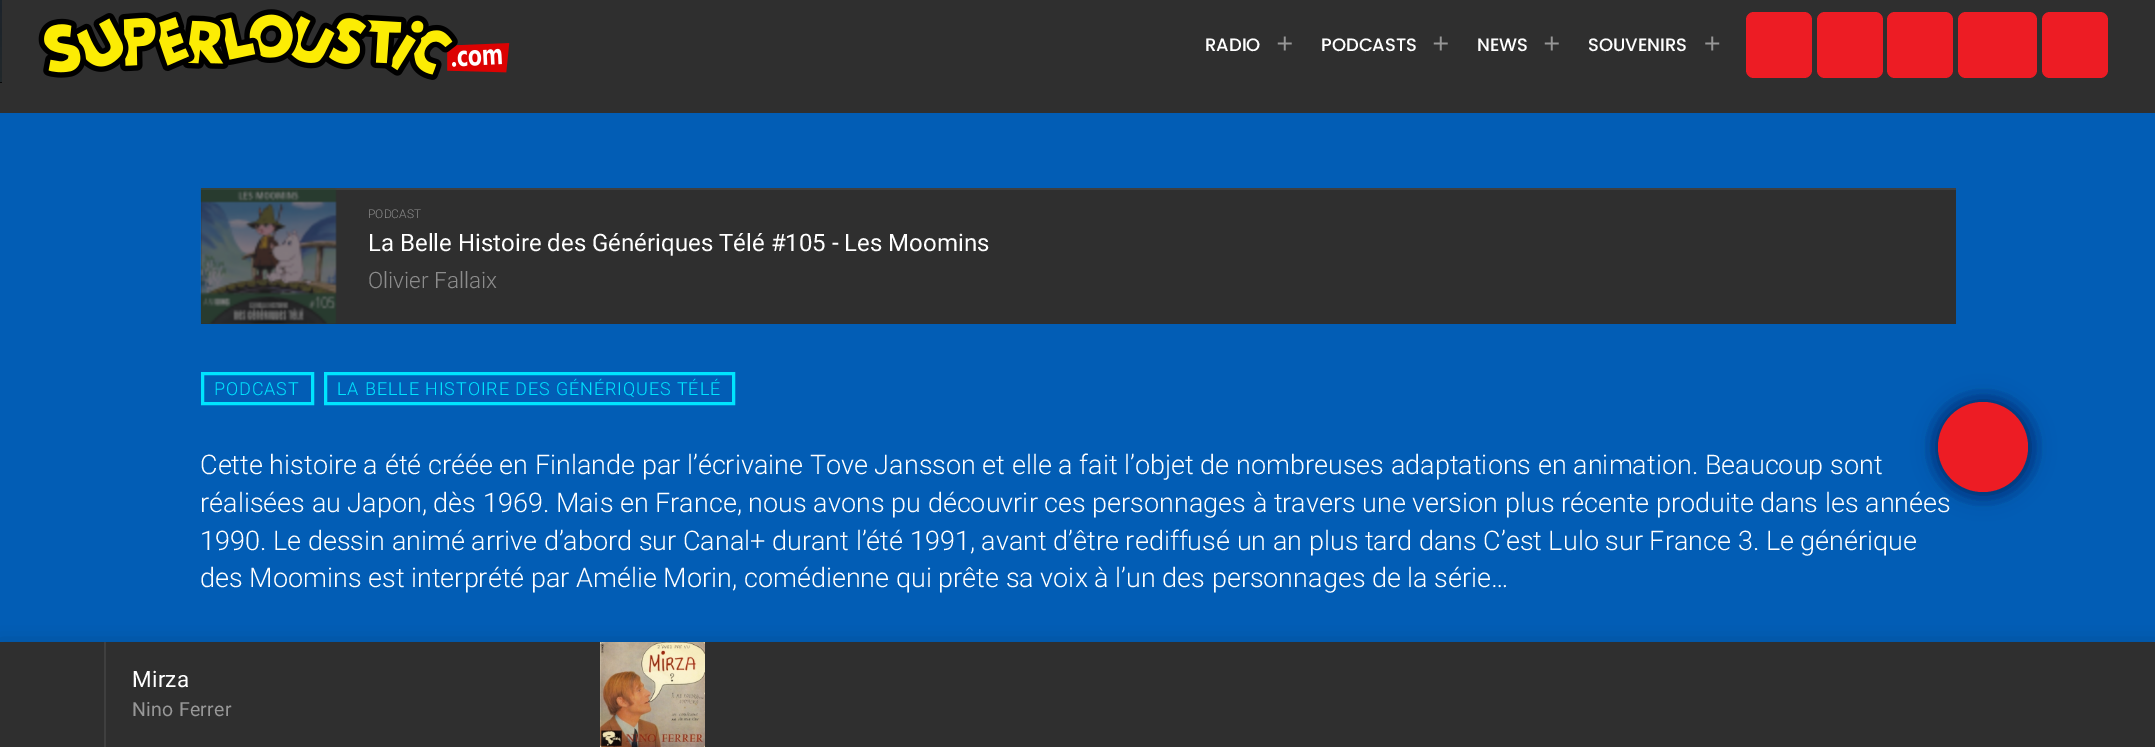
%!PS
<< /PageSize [2155 747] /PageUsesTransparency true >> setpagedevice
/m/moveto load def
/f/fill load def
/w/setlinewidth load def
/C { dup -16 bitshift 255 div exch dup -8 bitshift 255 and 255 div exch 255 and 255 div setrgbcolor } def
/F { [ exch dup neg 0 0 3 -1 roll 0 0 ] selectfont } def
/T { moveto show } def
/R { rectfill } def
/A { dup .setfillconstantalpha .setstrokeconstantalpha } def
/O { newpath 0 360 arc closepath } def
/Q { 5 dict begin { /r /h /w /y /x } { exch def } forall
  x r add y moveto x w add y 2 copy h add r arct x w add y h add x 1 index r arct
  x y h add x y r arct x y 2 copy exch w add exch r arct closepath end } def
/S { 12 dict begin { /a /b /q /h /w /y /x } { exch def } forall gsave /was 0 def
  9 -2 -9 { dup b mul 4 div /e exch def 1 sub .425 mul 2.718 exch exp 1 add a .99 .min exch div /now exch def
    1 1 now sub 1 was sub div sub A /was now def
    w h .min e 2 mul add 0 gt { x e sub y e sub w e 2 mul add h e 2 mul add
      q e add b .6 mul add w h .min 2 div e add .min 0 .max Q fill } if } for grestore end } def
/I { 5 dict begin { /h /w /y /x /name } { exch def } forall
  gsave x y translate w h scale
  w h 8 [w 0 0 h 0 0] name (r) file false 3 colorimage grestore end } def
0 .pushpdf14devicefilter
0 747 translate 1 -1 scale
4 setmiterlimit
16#2F2F2F C
0 0 2155 747 R
(1.rgb) 38 9 472 71 I
/Poppins-Medium 18 F
16#FFFFFF C
(RADIO) 1205 51 T
(2.rgb) 1277 36 15 15 I
(PODCASTS) 1321 51 T
(2.rgb) 1433 36 15 15 I
(NEWS) 1477 51 T
(2.rgb) 1544 36 15 15 I
(SOUVENIRS) 1588 51 T
(3.rgb) 1705 36 15 15 I
16#ED1C24 C
1746 12 66 66 8 Q f
1817 12 66 66 8 Q f
1887 12 66 66 8 Q f
1958 12 79 66 8 Q f
2042 12 66 66 8 Q f
16#080808 C
0 0 2 83 R
(4.rgb) 0 0 2 82 I
16#025DB5 C
0 113 2155 529 R
16#2F2F2F C
201 190 1755 134 R
16#3F3F3F C
201 188 1755 2 R
(5.rgb) 200 188 137 136 I
/Roboto-Light 12 F
16#8C8C8C C
(PODCAST) 368 218 T
/Roboto-Regular 24 F
16#FFFFFF C
(La Belle Histoire des Génériques Télé #105 - Les Moomins) 368 251 T
/Roboto-Light 22.5 F
16#8C8C8C C
(Olivier Fallaix) 368 288 T
16#00E4FF C
3 w
202.5 373.5 110 30 rectstroke
/Roboto-Light 18 F
214 395 m .9 0 (PODCAST) ashow
325.5 373.5 408 30 rectstroke
337 395 m .9 0 (LA BELLE HISTOIRE DES GÉNÉRIQUES TÉLÉ) ashow
/Roboto-Light 27 F
16#FFFFFF C
(Cette histoire a été créée en Finlande par l’écrivaine Tove Jansson et elle a fait l’objet de nombreuses adaptations en animation. Beaucoup sont) 200 474 T
(réalisées au Japon, dès 1969. Mais en France, nous avons pu découvrir ces personnages à travers une version plus récente produite dans les années) 200 512 T
(1990. Le dessin animé arrive d’abord sur Canal+ durant l’été 1991, avant d’être rediffusé un an plus tard dans C’est Lulo sur France 3. Le générique) 200 550 T
(des Moomins est interprété par Amélie Morin, comédienne qui prête sa voix à l’un des personnages de la série…) 200 587 T
16#000000 C
1934 398 99 99 49.5 11 .2 S
1949 413 69 69 34.5 11 .2 S
1949 413 69 69 34.5 11 .2 S
1949 413 69 69 34.5 11 .2 S
1949 413 69 69 34.5 11 .2 S
1949 413 69 69 34.5 11 .2 S
1949 413 69 69 34.5 11 .2 S
1949 413 69 69 34.5 11 .2 S
16#ED1C24 C
1983 447 45 O f
16#000000 C
0 650 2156 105 0 11 .35 S
16#2F2F2F C
0 642 2155 105 R
16#3F3F3F C
104 642 2 105 R
/Roboto-Regular 22.5 F
16#FFFFFF C
132 687 m .25 0 (Mirza) ashow
/Roboto-Regular 19.5 F
16#979797 C
132 716 m .25 0 (Nino Ferrer) ashow
(6.rgb) 600 642 105 105 I
.poppdf14devicefilter showpage
